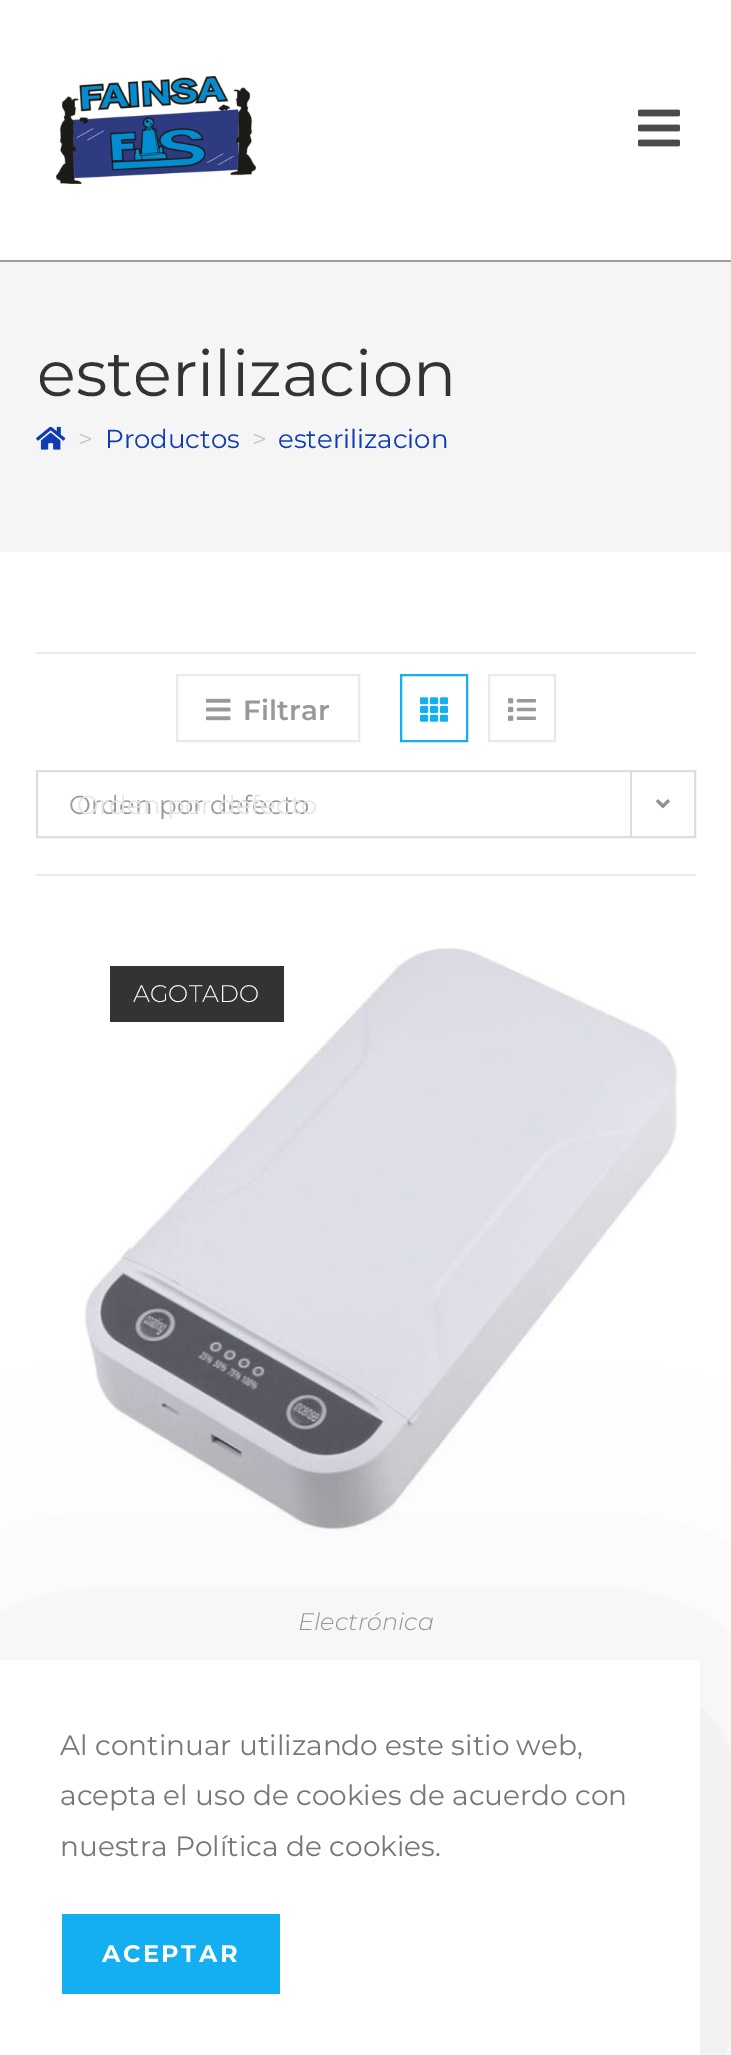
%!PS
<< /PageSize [731 2055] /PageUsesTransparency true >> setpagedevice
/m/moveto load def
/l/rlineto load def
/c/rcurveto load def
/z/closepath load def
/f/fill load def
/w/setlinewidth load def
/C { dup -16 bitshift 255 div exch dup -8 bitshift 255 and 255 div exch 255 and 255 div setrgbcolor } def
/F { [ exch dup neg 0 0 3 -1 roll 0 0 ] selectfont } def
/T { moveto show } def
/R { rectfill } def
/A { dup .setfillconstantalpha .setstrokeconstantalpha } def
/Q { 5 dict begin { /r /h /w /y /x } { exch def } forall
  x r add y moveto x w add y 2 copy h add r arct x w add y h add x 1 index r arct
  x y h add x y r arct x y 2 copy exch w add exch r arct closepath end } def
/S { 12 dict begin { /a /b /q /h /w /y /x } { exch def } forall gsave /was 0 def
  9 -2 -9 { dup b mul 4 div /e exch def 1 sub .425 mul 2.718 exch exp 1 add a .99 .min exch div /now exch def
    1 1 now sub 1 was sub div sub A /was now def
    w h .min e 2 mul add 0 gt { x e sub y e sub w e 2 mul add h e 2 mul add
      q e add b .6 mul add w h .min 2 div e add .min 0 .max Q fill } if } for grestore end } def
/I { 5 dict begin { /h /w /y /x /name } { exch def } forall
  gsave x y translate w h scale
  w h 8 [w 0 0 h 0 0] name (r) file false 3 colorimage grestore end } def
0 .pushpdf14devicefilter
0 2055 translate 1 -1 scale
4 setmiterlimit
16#FFFFFF C
0 0 731 2055 R
16#9D9D9D C
0 260 731 2 R
(1.rgb) 56 76 200 108 I
(2.rgb) 638 109 42 38 I
16#F5F5F5 C
0 262 731 290 R
/Montserrat-Regular 64 F
16#333333 C
(esterilizacion) 37 396 T
(3.rgb) 36 426 30 24 I
/Montserrat-Regular 26 F
16#C6C6C6 C
(>) 78 448 T
16#0E3CB2 C
(Productos) 105 448 T
16#C6C6C6 C
(>) 252 448 T
16#0E3CB2 C
(esterilizacion) 278 448 T
16#EAEAEA C
36 652 660 2 R
36 874 660 2 R
2 w
177 675 182 66 rectstroke
(4.rgb) 206 698 25 23 I
/Montserrat-SemiBold 28 F
16#999999 C
(Filtrar) 243 720 T
16#13AFF0 C
401 675 66 66 rectstroke
(5.rgb) 420 697 28 25 I
16#EAEAEA C
489 675 66 66 rectstroke
(6.rgb) 508 698 28 23 I
16#DDDDDD C
37 771 658 66 rectstroke
/Montserrat-Regular 26 F
16#999999 C
(Orden por defecto) 69 814 T
16#DDDDDD C
630 772 2 64 R
(7.rgb) 656 799 14 10 I
16#E6E6E6 C
(Orden por defecto) 77 814 T
(8.rgb) 84 948 593 582 I
16#333333 C
110 966 174 56 R
/Montserrat-Light 24 F
16#FFFFFF C
(AGOTADO) 133 1002 T
/Montserrat-LightItalic 24 F
16#999999 C
(Electrónica) 298 1630 T
16#000000 C
0 1700 700 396 8 150 .1 S
16#FFFFFF C
0 1660 m 692 0 l 4.5 0 8 3.5 8 8 c 0 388 l -700 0 l z f
/Montserrat-Regular 28 F
16#777777 C
(Al continuar utilizando este sitio web,) 60 1755 T
(acepta el uso de cookies de acuerdo con) 60 1805 T
(nuestra Política de cookies.) 60 1856 T
16#13AFF0 C
62 1914 218 80 R
/Montserrat-Bold 24 F
16#FFFFFF C
102 1962 m 2.5 0 (ACEPTAR) ashow
.poppdf14devicefilter showpage
